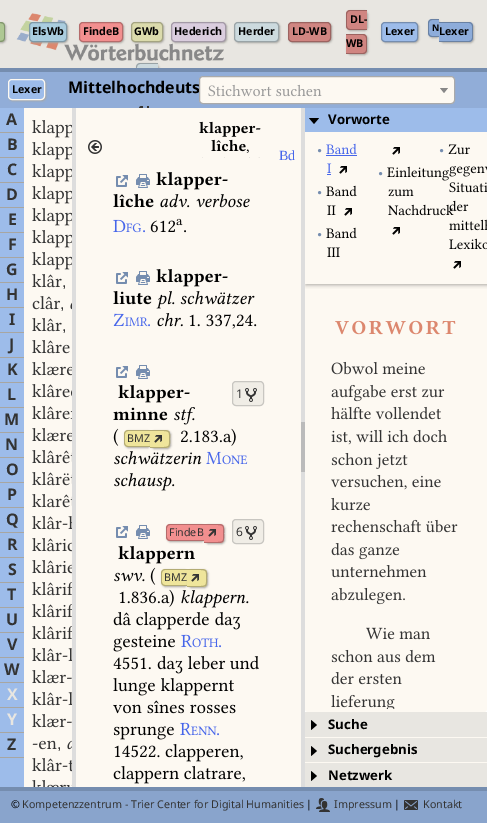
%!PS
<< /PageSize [487 823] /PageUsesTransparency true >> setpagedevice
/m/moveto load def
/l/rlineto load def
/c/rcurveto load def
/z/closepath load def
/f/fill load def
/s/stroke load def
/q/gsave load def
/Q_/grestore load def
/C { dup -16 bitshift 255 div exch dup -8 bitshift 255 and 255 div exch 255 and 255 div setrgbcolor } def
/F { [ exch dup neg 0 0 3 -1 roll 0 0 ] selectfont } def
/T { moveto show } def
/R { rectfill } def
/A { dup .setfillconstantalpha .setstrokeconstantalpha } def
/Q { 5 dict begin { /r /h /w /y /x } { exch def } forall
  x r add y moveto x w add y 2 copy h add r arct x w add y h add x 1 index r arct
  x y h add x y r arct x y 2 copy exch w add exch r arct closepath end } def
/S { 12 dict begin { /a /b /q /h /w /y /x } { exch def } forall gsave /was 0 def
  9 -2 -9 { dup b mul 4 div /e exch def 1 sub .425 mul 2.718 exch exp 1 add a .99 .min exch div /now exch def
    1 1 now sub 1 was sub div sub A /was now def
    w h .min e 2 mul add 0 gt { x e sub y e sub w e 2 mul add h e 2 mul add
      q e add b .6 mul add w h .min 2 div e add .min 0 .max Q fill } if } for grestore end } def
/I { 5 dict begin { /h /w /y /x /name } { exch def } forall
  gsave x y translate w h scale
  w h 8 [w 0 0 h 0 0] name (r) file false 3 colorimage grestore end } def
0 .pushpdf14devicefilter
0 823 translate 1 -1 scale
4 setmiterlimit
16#758DAF C
0 0 487 823 R
16#E8E6E1 C
0 0 487 68 R
(1.rgb) 16 13 208 48 I
16#A8A6A1 C
-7 23 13 20 4 1 1 S
16#AEC893 C
0 22 m 1 0 l 2 0 4 2 4 4 c 0 12 l 0 2 -2 4 -4 4 c -1 0 l z f
16#82966E C
-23 22 m 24 0 l 2 0 4 2 4 4 c 0 12 l 0 2 -2 4 -4 4 c -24 0 l z -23 23 m 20 0 l 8.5 0 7 1 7 9 c 0 8 1.5 9 -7 9 c -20 0 l z eofill
16#A8A6A1 C
30 23 38 20 4 1 1 S
16#AACDDF C
29.5 22.5 37 19 3.5 Q q f Q_
16#7F99A7 C
s
/NotoSans-Bold 10.7 F
16#000000 C
(ElsWb) 32 35 T
16#A8A6A1 C
80 23 44 20 4 1 1 S
16#F28F8F C
79.5 22.5 43 19 3.5 Q q f Q_
16#B56B6B C
s
16#000000 C
(FindeB) 83 35 T
16#A8A6A1 C
132 23 32 20 4 1 1 S
16#DBDBAC C
131.5 22.5 31 19 3.5 Q q f Q_
16#A4A481 C
s
16#000000 C
(GWb) 134 35 T
16#A8A6A1 C
172 23 55 20 4 1 1 S
16#DACDDE C
171.5 22.5 54 19 3.5 Q q f Q_
16#A399A6 C
s
16#000000 C
(Hederich) 174 35 T
16#A8A6A1 C
235 23 45 20 4 1 1 S
16#CCDADE C
234.5 22.5 44 19 3.5 Q q f Q_
16#99A3A6 C
s
16#000000 C
(Herder) 238 35 T
16#A8A6A1 C
289 23 43 20 4 1 1 S
16#D08581 C
288.5 22.5 42 19 3.5 Q q f Q_
16#9C6360 C
s
16#000000 C
(LD-WB) 292 35 T
16#A8A6A1 C
347 11 21 20 4 1 1 S
16#D08581 C
350 10 m 17 0 l 0 20 l -17 0 l -2 0 -4 -2 -4 -4 c 0 -12 l 0 -2 2 -4 4 -4 c z f
16#9C6360 C
350 10 m 17 0 l 0 20 l -17 0 l -2 0 -4 -2 -4 -4 c 0 -12 l 0 -2 2 -4 4 -4 c z 350 11 m 17 0 l 0 18 l -17 0 l -1.5 0 -3 -1.5 -3 -3 c 0 -12 l 0 -1.5 1.5 -3 3 -3 c z eofill
16#000000 C
(DL-) 350 23 T
16#A8A6A1 C
347 35 21 20 4 1 1 S
16#D08581 C
346 34 m 17 0 l 2 0 4 2 4 4 c 0 12 l 0 2 -2 4 -4 4 c -17 0 l z f
16#9C6360 C
346 34 m 17 0 l 2 0 4 2 4 4 c 0 12 l 0 2 -2 4 -4 4 c -17 0 l z 346 35 m 17 0 l 1.5 0 3 1.5 3 3 c 0 12 l 0 1.5 -1.5 3 -3 3 c -17 0 l z eofill
16#000000 C
(WB) 346 47 T
16#A8A6A1 C
382 23 37 20 4 1 1 S
16#9DBCEA C
381.5 22.5 36 19 3.5 Q q f Q_
16#758DAF C
s
16#000000 C
(Lexer) 385 35 T
16#A8A6A1 C
429 20 11 18 4 1 1 S
16#8DACDA C
432 19 m 7 0 l 0 18 l -7 0 l -2 0 -4 -2 -4 -4 c 0 -10 l 0 -2 2 -4 4 -4 c z f
16#6981A3 C
432 19 m 7 0 l 0 18 l -7 0 l -2 0 -4 -2 -4 -4 c 0 -10 l 0 -2 2 -4 4 -4 c z 432 20 m 7 0 l 0 16 l -7 0 l -1.5 0 -3 -1.5 -3 -3 c 0 -10 l 0 -1.5 1.5 -3 3 -3 c z eofill
16#A8A6A1 C
440 23 34 20 4 1 1 S
/NotoSans-Bold 9 F
16#000000 C
(N) 432 31 T
16#8DACDA C
439 22 m 30 0 l 2 0 4 2 4 4 c 0 12 l 0 2 -2 4 -4 4 c -30 0 l z f
16#6981A3 C
439 22 m 30 0 l 2 0 4 2 4 4 c 0 12 l 0 2 -2 4 -4 4 c -30 0 l z 439 23 m 30 0 l 1.5 0 3 1.5 3 3 c 0 12 l 0 1.5 -1.5 3 -3 3 c -30 0 l z eofill
/NotoSans-Bold 10.7 F
16#000000 C
(Lexer) 439 35 T
q
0 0 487 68 rectclip
16#A8A6A1 C
137 64 22 20 4 1 1 S
Q_
16#CDDADE C
140 63 m 18 0 l 0 5 l -22 0 l 0 -1 l 0 -2 2 -4 4 -4 c z f
q
0 0 487 68 rectclip
16#99A3A6 C
140 63 m 18 0 l 0 20 l -18 0 l -2 0 -4 -2 -4 -4 c 0 -12 l 0 -2 2 -4 4 -4 c z 140 64 m 18 0 l 0 18 l -18 0 l -1.5 0 -3 -1.5 -3 -3 c 0 -12 l 0 -1.5 1.5 -3 3 -3 c z eofill
Q_
16#91ADD8 C
0 72 487 36 R
16#A8A6A1 C
9 80 37 21 4 1 1 S
16#9DBCEA C
8.5 79.5 36 20 3.5 Q q f Q_
16#FDF9F2 C
s
16#000000 C
(Lexer) 12 93 T
/NotoSans-Bold 16 F
(Mittelhochdeuts) 68 93 T
16#FDF9F2 C
199.5 76.5 255 27 3.5 Q q f Q_
16#AAAAAA C
s
(2.rgb) 208 84 114 13 I
16#888888 C
440 88 m 8 0 l -4 5 l z f
(3.rgb) 139 106 10 2 I
16#DDDDDD C
72 108 4 679 R
16#FDF9F2 C
76 108 225 679 R
16#FFFFFF C
305 709 182 3 R
16#FDF9F2 C
305 132 m 182 0 l 0 577 l 0 1.5 -1.5 3 -3 3 c -176 0 l -1.5 0 -3 -1.5 -3 -3 c z f
q
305 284 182 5 rectclip
16#A8A6A1 C
306 133 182 152 0 2 1 S
Q_
16#DDDDDD C
301 108 4 679 R
16#BBBBBB C
301 422 4 50 R
16#9DBCEA C
0 108 24 679 R
16#A8A6A1 C
0 132 24 1 R
16#333333 C
(A) 6 125 T
16#A8A6A1 C
0 157 24 1 R
16#333333 C
(B) 7 150 T
16#A8A6A1 C
0 182 24 1 R
16#333333 C
(C) 7 175 T
16#A8A6A1 C
0 207 24 1 R
16#333333 C
(D) 6 200 T
16#A8A6A1 C
0 232 24 1 R
16#333333 C
(E) 8 225 T
16#A8A6A1 C
0 257 24 1 R
16#333333 C
(F) 8 250 T
16#A8A6A1 C
0 282 24 1 R
16#333333 C
(G) 6 275 T
16#A8A6A1 C
0 307 24 1 R
16#333333 C
(H) 6 300 T
16#A8A6A1 C
0 332 24 1 R
16#333333 C
(I) 9 325 T
16#A8A6A1 C
0 357 24 1 R
16#333333 C
(J) 9 350 T
16#A8A6A1 C
0 382 24 1 R
16#333333 C
(K) 7 375 T
16#A8A6A1 C
0 407 24 1 R
16#333333 C
(L) 7 400 T
16#A8A6A1 C
0 432 24 1 R
16#333333 C
(M) 4 425 T
16#A8A6A1 C
0 457 24 1 R
16#333333 C
(N) 5 450 T
16#A8A6A1 C
0 482 24 1 R
16#333333 C
(O) 6 475 T
16#A8A6A1 C
0 507 24 1 R
16#333333 C
(P) 7 500 T
16#A8A6A1 C
0 532 24 1 R
16#333333 C
(Q) 6 525 T
16#A8A6A1 C
0 557 24 1 R
16#333333 C
(R) 7 550 T
16#A8A6A1 C
0 582 24 1 R
16#333333 C
(S) 8 575 T
16#A8A6A1 C
0 607 24 1 R
16#333333 C
(T) 7 600 T
16#A8A6A1 C
0 632 24 1 R
16#333333 C
(U) 6 625 T
16#A8A6A1 C
0 657 24 1 R
16#333333 C
(V) 7 650 T
16#A8A6A1 C
0 682 24 1 R
16#333333 C
(W) 4 675 T
16#A8A6A1 C
0 707 24 1 R
16#E8E6E1 C
(X) 7 700 T
16#A8A6A1 C
0 732 24 1 R
16#E8E6E1 C
(Y) 7 725 T
16#A8A6A1 C
0 757 24 1 R
16#333333 C
(Z) 7 750 T
16#FDF9F2 C
24 108 48 679 R
(4.rgb) 32 120 40 18 I
(4.rgb) 32 142 40 18 I
(4.rgb) 32 164 40 18 I
(4.rgb) 32 186 40 18 I
(4.rgb) 32 208 40 18 I
(4.rgb) 32 230 40 18 I
(4.rgb) 32 252 40 18 I
(5.rgb) 32 274 30 14 I
/LiberationSans-Regular 16 F
16#333333 C
(,) 62 287 T
(6.rgb) 32 296 29 14 I
(,) 60 309 T
(7.rgb) 70 302 2 8 I
(5.rgb) 32 318 30 14 I
(,) 62 331 T
(8.rgb) 32 340 38 14 I
(9.rgb) 32 362 40 14 I
(10.rgb) 32 384 40 14 I
(11.rgb) 32 406 40 14 I
(9.rgb) 32 428 40 14 I
(12.rgb) 32 450 40 14 I
(13.rgb) 32 472 40 14 I
(14.rgb) 32 494 40 14 I
(15.rgb) 32 516 40 14 I
(16.rgb) 32 538 40 14 I
(17.rgb) 32 560 40 14 I
(18.rgb) 32 582 40 14 I
(18.rgb) 32 604 40 14 I
(18.rgb) 32 626 40 14 I
(19.rgb) 32 648 40 14 I
(20.rgb) 32 670 40 14 I
(19.rgb) 32 692 40 14 I
(20.rgb) 32 714 40 14 I
(21.rgb) 32 740 25 10 I
(,) 57 749 T
(22.rgb) 67 740 5 10 I
(23.rgb) 32 758 40 14 I
(24.rgb) 32 780 40 7 I
(25.rgb) 88 140 14 14 I
(26.rgb) 199 121 62 16 I
(27.rgb) 211 139 35 13 I
(28.rgb) 246 149 3 4 I
16#EEEAE3 C
202 157 1 1 R
16#EBE8E1 C
224 157 1 1 R
(29.rgb) 249 157 11 1 I
/LiberationSerif-Regular 14 F
16#4766EA C
(Bd) 279 160 T
(30.rgb) 116 175 12 12 I
(31.rgb) 136 174 14 14 I
(32.rgb) 156 172 72 18 I
(33.rgb) 113 194 41 14 I
(34.rgb) 160 194 30 14 I
(35.rgb) 196 194 54 14 I
(36.rgb) 113 219 13 13 I
(37.rgb) 126 223 15 10 I
(38.rgb) 143 230 2 3 I
(39.rgb) 150 220 25 13 I
(40.rgb) 176 218 7 8 I
(41.rgb) 184 230 2 3 I
(30.rgb) 116 272 12 12 I
(31.rgb) 136 271 14 14 I
(32.rgb) 156 269 72 18 I
(42.rgb) 113 291 39 14 I
(43.rgb) 156 291 19 18 I
(44.rgb) 180 291 75 14 I
(45.rgb) 113 313 11 13 I
(46.rgb) 125 317 23 10 I
(38.rgb) 148 324 2 3 I
(47.rgb) 157 313 26 14 I
(48.rgb) 189 314 11 13 I
(49.rgb) 206 314 51 15 I
(30.rgb) 116 366 12 12 I
(31.rgb) 136 365 14 14 I
(32.rgb) 118 385 72 18 I
16#F0EDE6 C
232.5 381.5 31 24 3.5 Q q f Q_
16#C8C6C1 C
s
/NotoSans-Regular 12 F
16#333333 C
(1) 236 398 T
(50.rgb) 245 388 12 14 I
(51.rgb) 113 407 55 14 I
(52.rgb) 174 407 21 18 I
(53.rgb) 113 428 6 18 I
16#A8A6A1 C
125 431 26 17 4 1 1 S
16#EFE59B C
128 430 m 22 0 l 0 17 l -22 0 l -2 0 -4 -2 -4 -4 c 0 -9 l 0 -2 2 -4 4 -4 c z f
16#B3AB74 C
128 430 m 22 0 l 0 17 l -22 0 l -2 0 -4 -2 -4 -4 c 0 -9 l 0 -2 2 -4 4 -4 c z 128 431 m 22 0 l 0 15 l -22 0 l -1.5 0 -3 -1.5 -3 -3 c 0 -9 l 0 -1.5 1.5 -3 3 -3 c z eofill
16#A8A6A1 C
151 431 20 18 4 1 1 S
16#EFE59B C
150 430 m 16 0 l 2 0 4 2 4 4 c 0 10 l 0 2 -2 4 -4 4 c -16 0 l z f
16#B3AB74 C
150 430 m 13.5 0 l 7.5 0 6.5 2.5 6.5 9 c 0 6.5 1 9 -6.5 9 c -13.5 0 l z 150 431 m 13.5 0 l 6.5 0 5.5 2 5.5 8 c 0 6 1 8 -5.5 8 c -13.5 0 l z eofill
/NotoSans-Regular 10.7 F
16#333333 C
(BMZ) 127 442 T
(54.rgb) 154 435 8 8 I
(55.rgb) 181 430 51 13 I
(56.rgb) 231 428 5 18 I
(57.rgb) 114 451 88 14 I
(58.rgb) 206 451 16 14 I
(59.rgb) 222 455 26 10 I
(60.rgb) 114 473 61 18 I
(30.rgb) 116 526 12 12 I
(31.rgb) 136 525 14 14 I
16#A8A6A1 C
167 525 38 17 4 1 1 S
16#F28F8F C
170 524 m 34 0 l 0 17 l -34 0 l -2 0 -4 -2 -4 -4 c 0 -9 l 0 -2 2 -4 4 -4 c z f
16#B56B6B C
170 524 m 34 0 l 0 17 l -34 0 l -2 0 -4 -2 -4 -4 c 0 -9 l 0 -2 2 -4 4 -4 c z 170 525 m 34 0 l 0 15 l -34 0 l -1.5 0 -3 -1.5 -3 -3 c 0 -9 l 0 -1.5 1.5 -3 3 -3 c z eofill
16#A8A6A1 C
205 525 20 19 4 1 1 S
16#F28F8F C
204 524 m 16 0 l 2 0 4 2 4 4 c 0 11 l 0 2 -2 4 -4 4 c -16 0 l z f
16#B56B6B C
204 524 m 13.5 0 l 7.5 0 6.5 2.5 6.5 9.5 c 0 7 1 9.5 -6.5 9.5 c -13.5 0 l z 204 525 m 13.5 0 l 7 0 5.5 2 5.5 8.5 c 0 6.5 1.5 8.5 -5.5 8.5 c -13.5 0 l z eofill
16#333333 C
(FindeB) 169 536 T
(61.rgb) 208 529 8 8 I
16#F0EDE6 C
232.5 519.5 31 24 3.5 Q q f Q_
16#C8C6C1 C
s
/NotoSans-Regular 12 F
16#333333 C
(6) 236 536 T
(50.rgb) 245 526 12 14 I
(62.rgb) 118 546 77 18 I
(63.rgb) 114 572 31 10 I
(53.rgb) 150 567 6 18 I
16#A8A6A1 C
162 570 26 17 4 1 1 S
16#EFE59B C
165 569 m 22 0 l 0 17 l -22 0 l -2 0 -4 -2 -4 -4 c 0 -9 l 0 -2 2 -4 4 -4 c z f
16#B3AB74 C
165 569 m 22 0 l 0 17 l -22 0 l -2 0 -4 -2 -4 -4 c 0 -9 l 0 -2 2 -4 4 -4 c z 165 570 m 22 0 l 0 15 l -22 0 l -1.5 0 -3 -1.5 -3 -3 c 0 -9 l 0 -1.5 1.5 -3 3 -3 c z eofill
16#A8A6A1 C
188 570 20 18 4 1 1 S
16#EFE59B C
187 569 m 16 0 l 2 0 4 2 4 4 c 0 10 l 0 2 -2 4 -4 4 c -16 0 l z f
16#B3AB74 C
187 569 m 13.5 0 l 7.5 0 6.5 2.5 6.5 9 c 0 6.5 1 9 -6.5 9 c -13.5 0 l z 187 570 m 13.5 0 l 6.5 0 5.5 2 5.5 8 c 0 6 1 8 -5.5 8 c -13.5 0 l z eofill
/NotoSans-Regular 10.7 F
16#333333 C
(BMZ) 164 581 T
(54.rgb) 191 574 8 8 I
(64.rgb) 119 591 51 13 I
(65.rgb) 169 589 5 18 I
(66.rgb) 181 590 68 18 I
(67.rgb) 113 612 18 14 I
(68.rgb) 136 612 73 18 I
(69.rgb) 215 612 25 18 I
(70.rgb) 113 635 62 17 I
(71.rgb) 181 634 11 14 I
(72.rgb) 192 638 27 10 I
(38.rgb) 219 645 2 3 I
(73.rgb) 113 657 38 13 I
(74.rgb) 157 656 26 18 I
(75.rgb) 188 656 38 14 I
(76.rgb) 230 656 29 14 I
(77.rgb) 113 678 42 18 I
(78.rgb) 161 678 73 18 I
(79.rgb) 113 704 29 10 I
(80.rgb) 147 700 37 14 I
(81.rgb) 190 704 46 10 I
(82.rgb) 113 726 61 14 I
(71.rgb) 180 722 11 14 I
(83.rgb) 191 726 26 10 I
(38.rgb) 217 733 2 3 I
(84.rgb) 114 745 46 13 I
(85.rgb) 165 744 78 18 I
(86.rgb) 113 766 66 18 I
(87.rgb) 184 766 61 16 I
16#9DBCEA C
305 108 182 24 R
(88.rgb) 309 118 10 6 I
/NotoSans-Bold 13.25 F
16#000000 C
(Vorworte) 328 124 T
(89.rgb) 317 149 5 4 I
(90.rgb) 326 143 31 12 I
16#4766EA C
326 155 31 1 R
(91.rgb) 327 163 5 10 I
(92.rgb) 339 166 8 8 I
327 174 4 1 R
(89.rgb) 439 149 5 4 I
(93.rgb) 448 144 22 11 I
(94.rgb) 449 166 38 11 I
(95.rgb) 449 182 38 11 I
(103.rgb) 388 204 66 12 I
(96.rgb) 449 200 20 12 I
(97.rgb) 449 219 38 12 I
(98.rgb) 449 238 38 12 I
(92.rgb) 453 261 8 8 I
(92.rgb) 392 147 8 8 I
(89.rgb) 317 233 5 4 I
(99.rgb) 326 227 31 12 I
(100.rgb) 327 247 13 10 I
(89.rgb) 378 172 5 4 I
(101.rgb) 387 166 62 15 I
(102.rgb) 388 189 26 8 I
(92.rgb) 392 227 8 8 I
(89.rgb) 317 191 5 4 I
(99.rgb) 326 185 31 12 I
(104.rgb) 327 205 9 10 I
(92.rgb) 344 208 8 8 I
(105.rgb) 335 320 121 15 I
(106.rgb) 331 361 94 14 I
(107.rgb) 331 384 114 18 I
(108.rgb) 331 406 110 14 I
(109.rgb) 331 429 116 16 I
(110.rgb) 331 452 77 17 I
(111.rgb) 331 474 110 16 I
(112.rgb) 331 497 39 14 I
(113.rgb) 331 519 127 14 I
(114.rgb) 331 543 69 17 I
(115.rgb) 331 565 96 13 I
(116.rgb) 331 587 74 18 I
(117.rgb) 366 627 64 13 I
(118.rgb) 331 649 105 14 I
(119.rgb) 331 672 71 13 I
(120.rgb) 331 694 64 15 I
16#E8E6E1 C
305 712 182 25 R
16#FDF9F2 C
305 737 182 1 R
(121.rgb) 311 720 6 10 I
16#000000 C
(Suche) 328 729 T
16#E8E6E1 C
305 738 182 24 R
16#FDF9F2 C
305 762 182 1 R
(121.rgb) 311 746 6 10 I
16#000000 C
(Suchergebnis) 328 754 T
16#E8E6E1 C
305 763 182 24 R
(121.rgb) 311 771 6 10 I
16#000000 C
(Netzwerk) 328 780 T
16#89A4CC C
0 791 487 32 R
/NotoSans-Regular 10.7 F
16#000000 C
(©) 11 808 T
16#333333 C
(Kompetenzzentrum - Trier Center for Digital Humanities) 22 808 T
16#000000 C
(|) 306 808 T
(122.rgb) 316 798 14 14 I
16#333333 C
(Impressum) 334 808 T
16#000000 C
(|) 394 808 T
(123.rgb) 404 800 14 10 I
16#333333 C
(Kontakt) 423 808 T
.poppdf14devicefilter showpage
